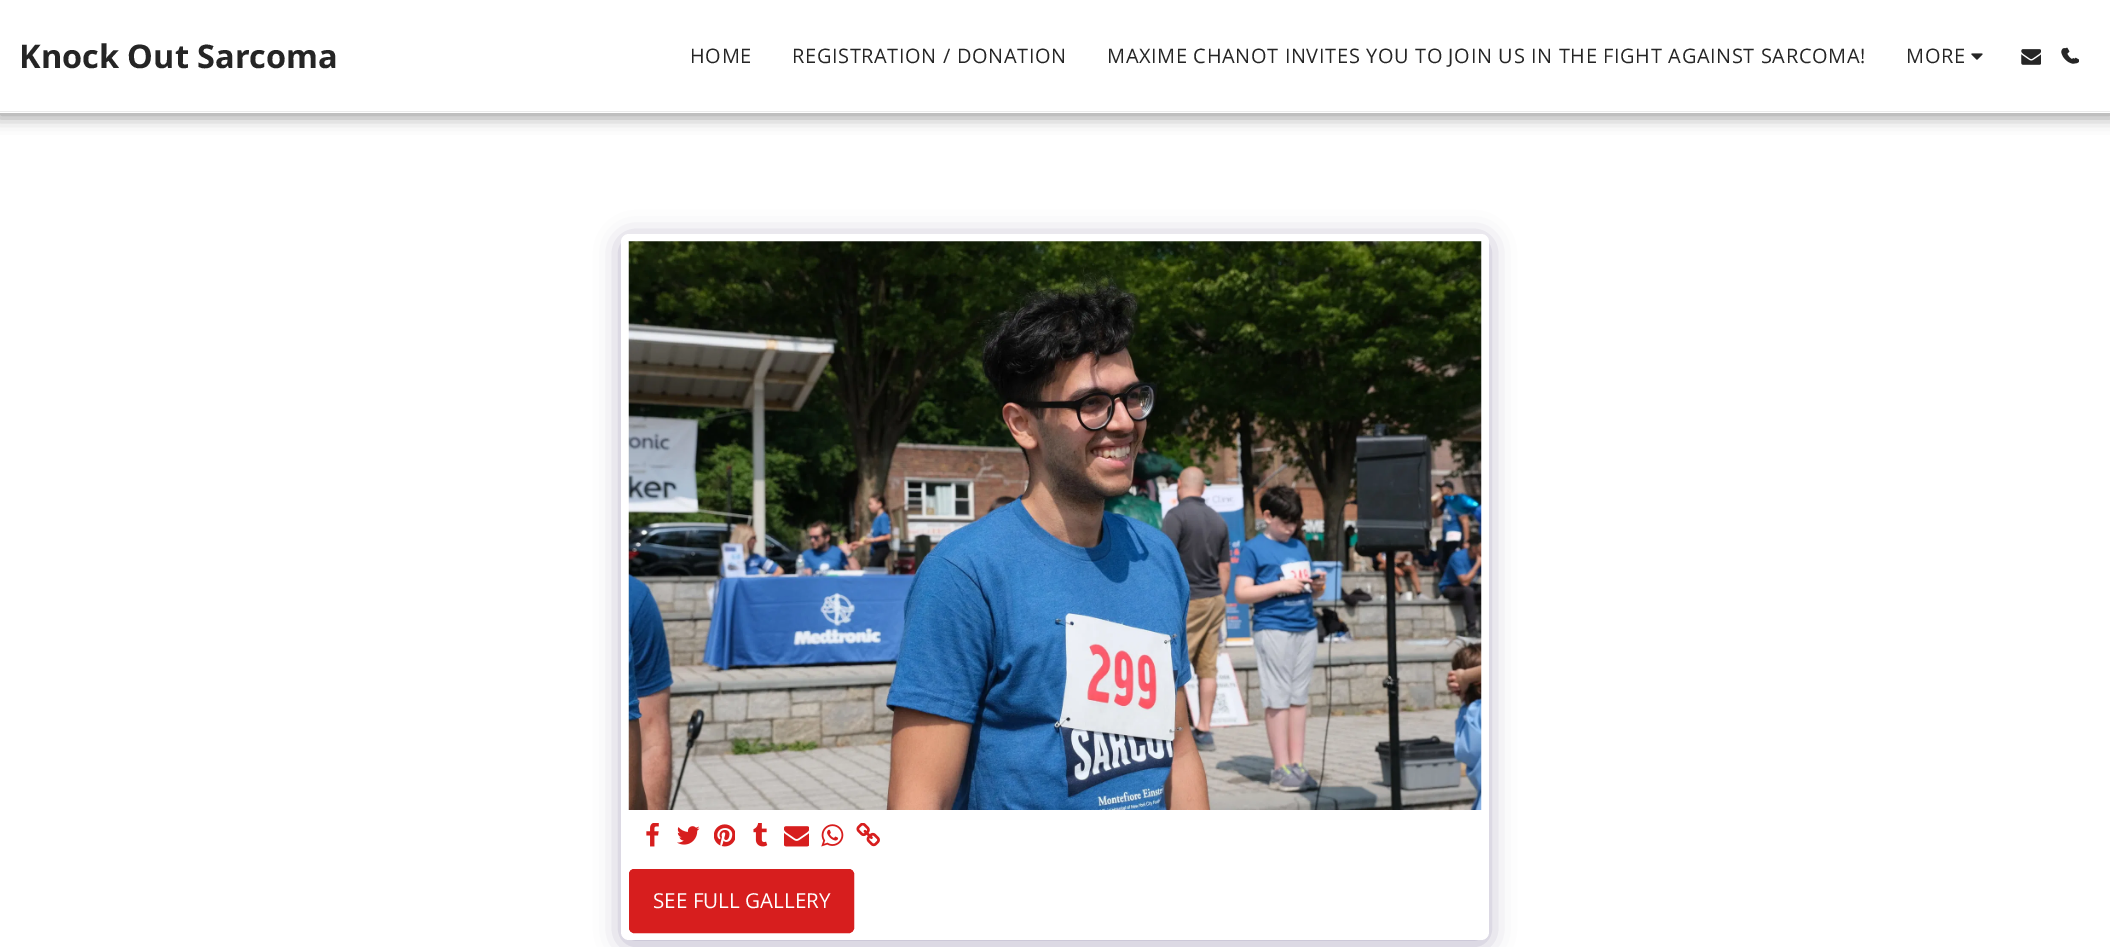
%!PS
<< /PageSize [2110 947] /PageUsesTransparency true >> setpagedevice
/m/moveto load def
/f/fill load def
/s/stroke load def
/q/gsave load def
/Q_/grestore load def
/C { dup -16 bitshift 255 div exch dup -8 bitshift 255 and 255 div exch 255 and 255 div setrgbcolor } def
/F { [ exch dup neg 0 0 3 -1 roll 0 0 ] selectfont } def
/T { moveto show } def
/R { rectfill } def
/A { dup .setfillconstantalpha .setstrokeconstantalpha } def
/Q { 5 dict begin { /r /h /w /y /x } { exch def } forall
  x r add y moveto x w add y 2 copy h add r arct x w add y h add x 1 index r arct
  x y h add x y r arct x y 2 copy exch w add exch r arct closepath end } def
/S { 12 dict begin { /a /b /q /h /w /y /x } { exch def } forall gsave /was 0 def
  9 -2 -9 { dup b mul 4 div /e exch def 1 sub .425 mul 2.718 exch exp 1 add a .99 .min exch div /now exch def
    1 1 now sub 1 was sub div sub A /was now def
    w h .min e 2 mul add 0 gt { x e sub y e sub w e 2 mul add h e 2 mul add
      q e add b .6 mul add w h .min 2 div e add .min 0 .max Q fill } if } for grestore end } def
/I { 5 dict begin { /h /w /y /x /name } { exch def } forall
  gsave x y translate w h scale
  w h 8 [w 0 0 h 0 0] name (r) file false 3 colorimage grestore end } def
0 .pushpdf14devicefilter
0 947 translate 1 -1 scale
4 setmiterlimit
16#FFFFFF C
0 0 2110 947 R
16#000000 C
-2 0 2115 118 0 7.5 .35 S
16#FFFFFF C
0 0 2110 113 R
16#EBEBEB C
0 111 2110 1 R
/OpenSans-Bold 32.5 F
16#252525 C
(Knock Out Sarcoma) 19 68 T
/OpenSans-Regular 20 F
690 63 m .62 0 (HOME) ashow
792 63 m .62 0 (REGISTRATION / DONATION) ashow
1107 63 m .62 0 (MAXIME CHANOT INVITES YOU TO JOIN US IN THE FIGHT AGAINST SARCOMA!) ashow
1906 63 m .62 0 (MORE) ashow
(1.rgb) 1971 53 12 7 I
(2.rgb) 2021 49 20 16 I
(3.rgb) 2064 47 15 17 I
(4.rgb) 2061 48 15 16 I
16#4D3F7A C
621 238 868 706 8 12.5 .4 S
16#FFFFFF C
621 234 868 706 8 Q f
(5.rgb) 628 241 854 569 I
(6.rgb) 646 823 13 24 I
(7.rgb) 677 826 23 19 I
(8.rgb) 714 824 21 23 I
(9.rgb) 753 823 15 24 I
(10.rgb) 784 826 25 21 I
(11.rgb) 821 824 23 23 I
(12.rgb) 856 823 24 24 I
16#D71E1E C
629.5 869.5 224 63 4.5 Q q f Q_
s
/OpenSans-Regular 20.6 F
16#FFFFFF C
(SEE FULL GALLERY) 653 908 T
.poppdf14devicefilter showpage
